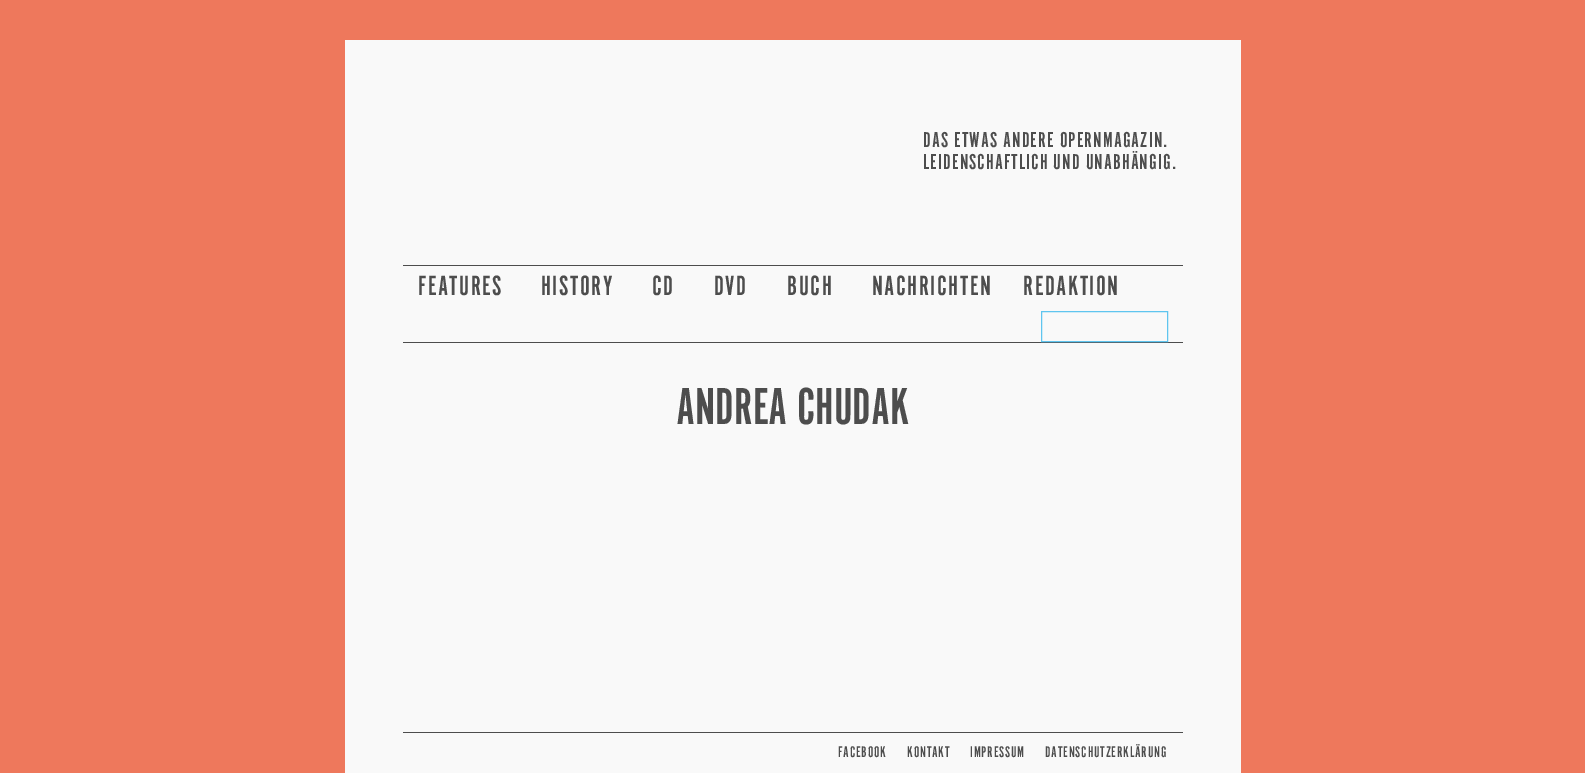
%!PS
<< /PageSize [1585 773] >> setpagedevice
/m/moveto load def
/C { dup -16 bitshift 255 div exch dup -8 bitshift 255 and 255 div exch 255 and 255 div setrgbcolor } def
/F { [ exch dup neg 0 0 3 -1 roll 0 0 ] selectfont } def
/T { moveto show } def
/R { rectfill } def
0 773 translate 1 -1 scale
4 setmiterlimit
16#EE785C C
0 0 1585 773 R
16#F9F9F9 C
345 40 896 733 R
/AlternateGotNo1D-Regular 22.4 F
16#4D4D4D C
923 147 m 1.1 0 (DAS ETWAS ANDERE OPERNMAGAZIN.) ashow
923 169 m 1.1 0 (LEIDENSCHAFTLICH UND UNABHÄNGIG.) ashow
403 265 780 1 R
403 342 780 1 R
/AlternateGotNo1D-Regular 29 F
418 295 m 1.5 0 (FEATURES) ashow
541 295 m 1.5 0 (HISTORY) ashow
652 295 m 1.5 0 (CD) ashow
714 295 m 1.5 0 (DVD) ashow
787 295 m 1.5 0 (BUCH) ashow
872 295 m 1.5 0 (NACHRICHTEN) ashow
1023 295 m 1.5 0 (REDAKTION) ashow
16#5FC5EF C
1041.5 311.5 126 30 rectstroke
/AlternateGotNo1D-Regular 54 F
16#4D4D4D C
(ANDREA CHUDAK) 676 424 T
403 732 780 1 R
/AlternateGotNo1D-Regular 16 F
838 757 m .8 0 (FACEBOOK) ashow
907 757 m .8 0 (KONTAKT) ashow
970 757 m .8 0 (IMPRESSUM) ashow
1045 757 m .8 0 (DATENSCHUTZERKLÄRUNG) ashow
showpage
